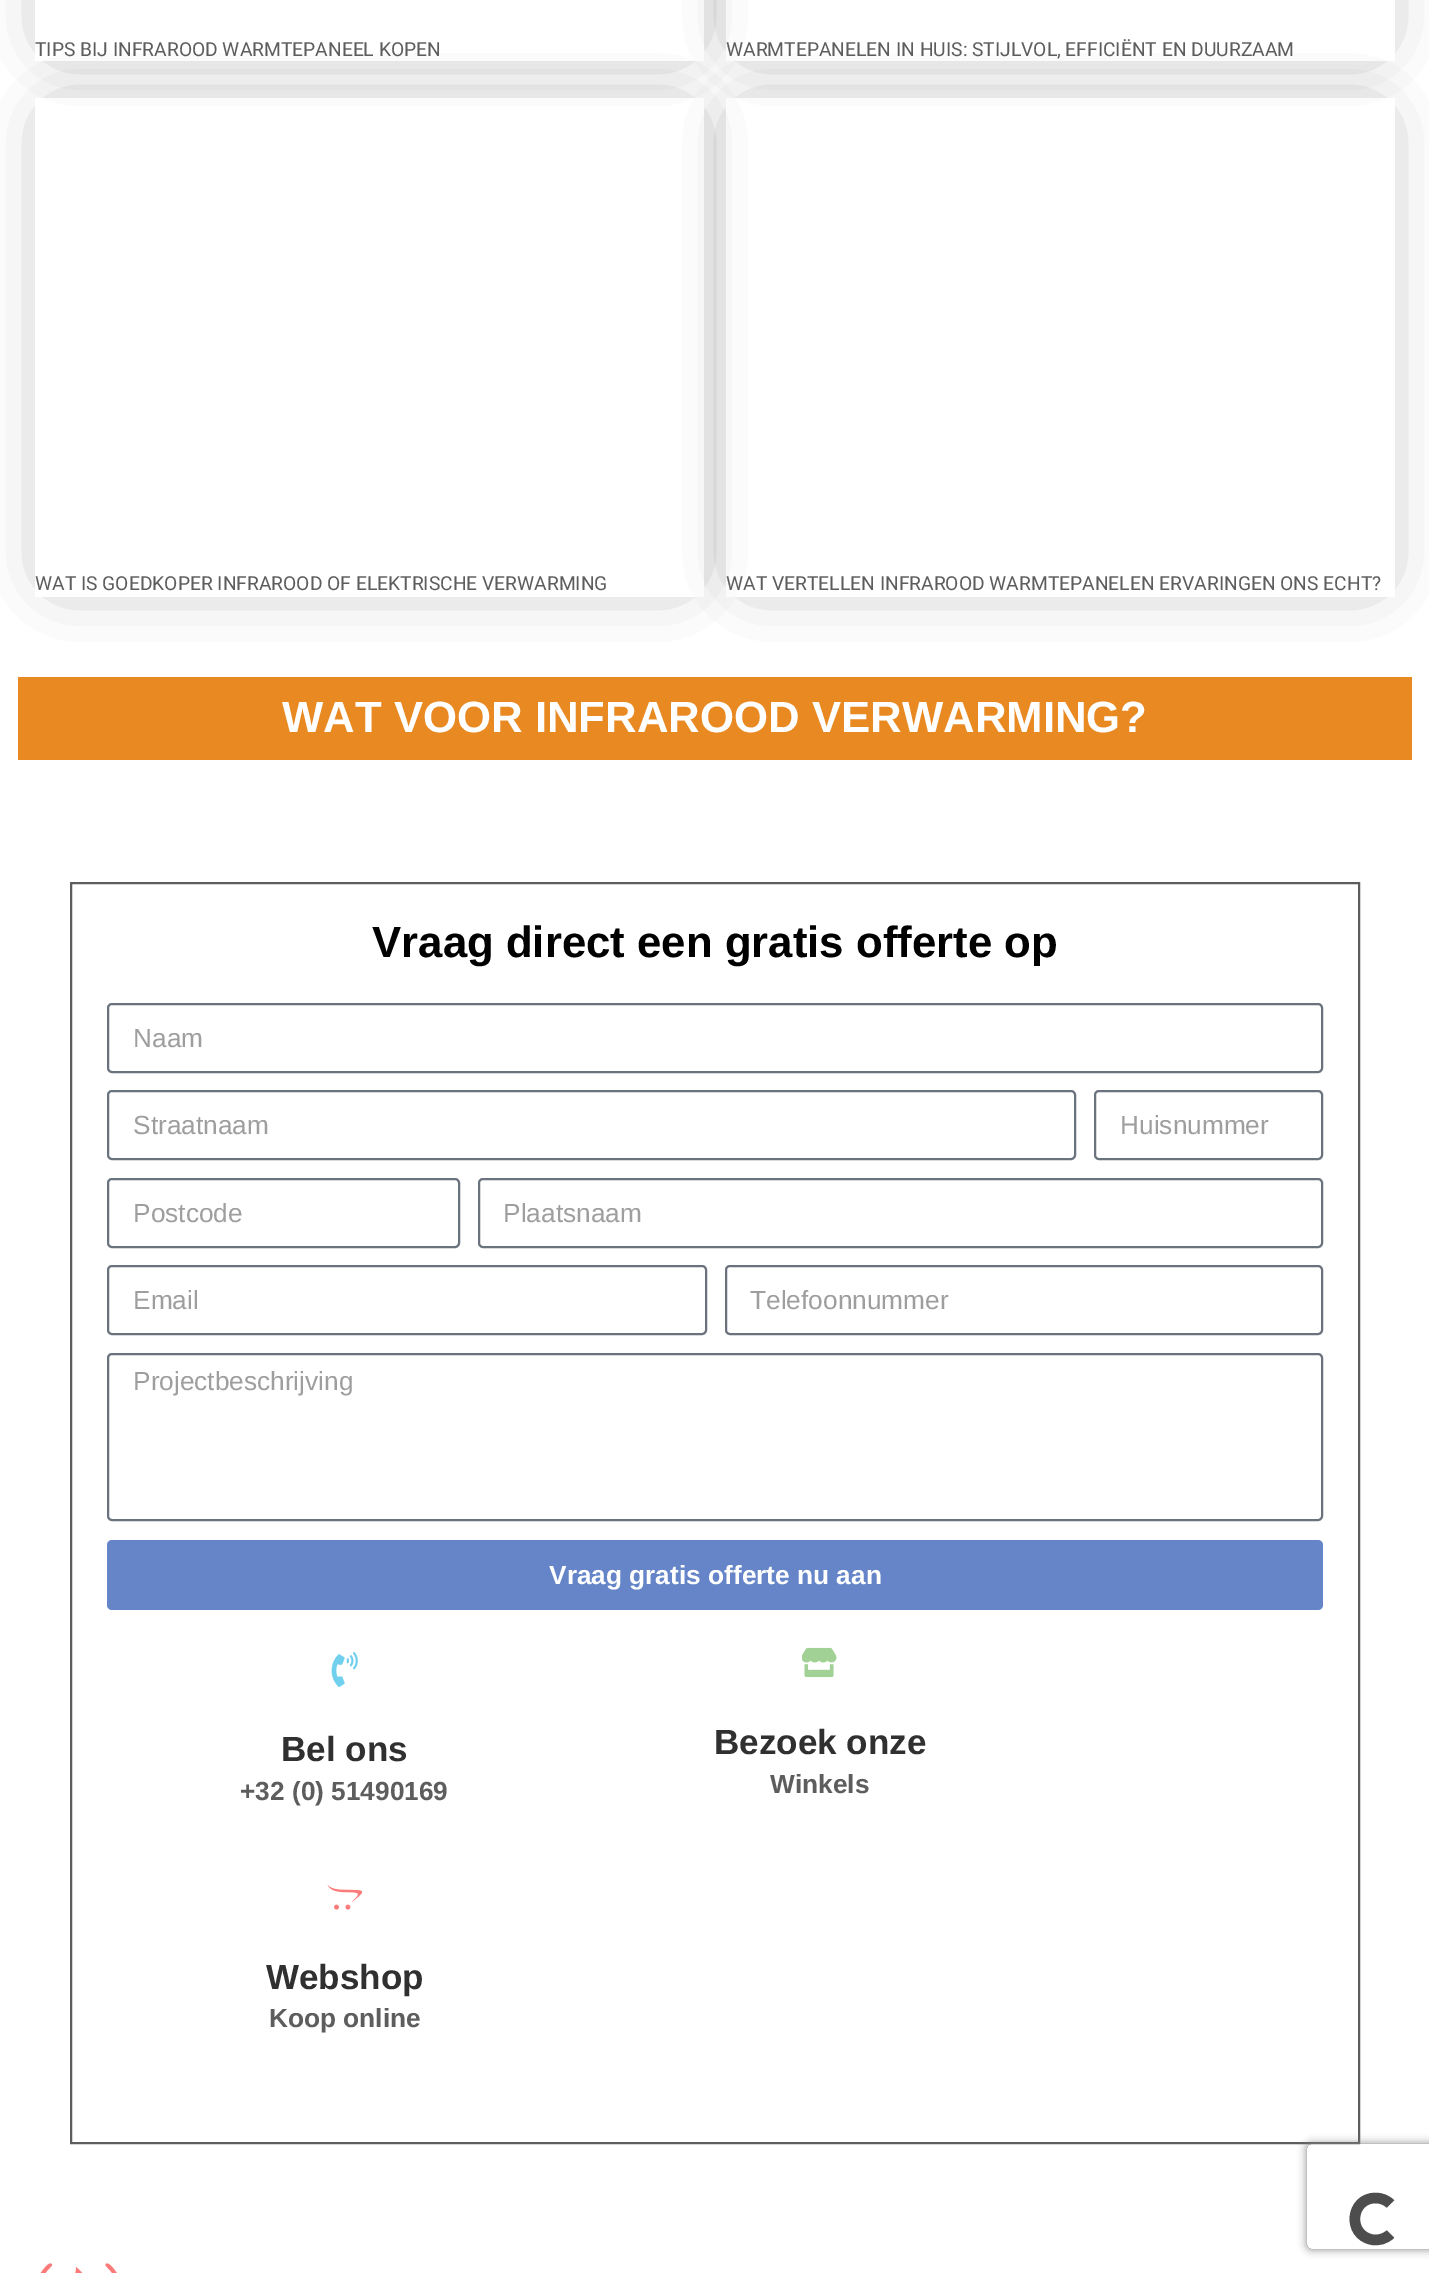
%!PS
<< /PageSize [1429 2273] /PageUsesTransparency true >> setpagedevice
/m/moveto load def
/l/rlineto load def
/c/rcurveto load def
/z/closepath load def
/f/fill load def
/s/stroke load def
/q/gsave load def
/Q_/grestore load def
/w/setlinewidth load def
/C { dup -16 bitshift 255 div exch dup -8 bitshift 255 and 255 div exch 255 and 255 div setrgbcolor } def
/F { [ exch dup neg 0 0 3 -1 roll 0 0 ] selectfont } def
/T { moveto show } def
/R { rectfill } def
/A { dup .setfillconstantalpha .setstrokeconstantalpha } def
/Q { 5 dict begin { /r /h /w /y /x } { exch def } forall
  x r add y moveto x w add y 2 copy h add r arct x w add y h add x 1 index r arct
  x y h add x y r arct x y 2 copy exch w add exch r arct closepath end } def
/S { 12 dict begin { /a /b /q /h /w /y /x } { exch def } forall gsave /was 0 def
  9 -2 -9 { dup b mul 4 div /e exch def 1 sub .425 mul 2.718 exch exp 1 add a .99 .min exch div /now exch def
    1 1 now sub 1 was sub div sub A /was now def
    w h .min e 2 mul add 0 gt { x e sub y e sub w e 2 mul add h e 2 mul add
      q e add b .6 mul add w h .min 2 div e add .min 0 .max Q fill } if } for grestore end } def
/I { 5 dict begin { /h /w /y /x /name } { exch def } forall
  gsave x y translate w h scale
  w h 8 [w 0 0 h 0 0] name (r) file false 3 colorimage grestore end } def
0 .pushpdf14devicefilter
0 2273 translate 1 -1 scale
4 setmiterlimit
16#FFFFFF C
0 0 1429 2273 R
q
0 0 m 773 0 l 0 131 l -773 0 l z 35 -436 m 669 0 l 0 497 l -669 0 l z eoclip newpath
16#000000 C
61 -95 616 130 0 31.5 .5 S
Q_
/Roboto-Regular 19.25 F
16#5D5D5D C
(TIPS BIJ INFRAROOD WARMTEPANEEL KOPEN) 35 56 T
q
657 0 m 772 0 l 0 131 l -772 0 l z 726 -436 m 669 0 l 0 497 l -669 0 l z eoclip newpath
16#000000 C
753 -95 616 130 0 31.5 .5 S
Q_
(WARMTEPANELEN IN HUIS: STIJLVOL, EFFICIËNT EN DUURZAAM) 726 56 T
q
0 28 m 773 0 l 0 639 l -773 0 l z 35 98 m 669 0 l 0 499 l -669 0 l z eoclip newpath
16#000000 C
61 124 616 447 0 31.5 .5 S
Q_
(WAT IS GOEDKOPER INFRAROOD OF ELEKTRISCHE VERWARMING) 35 590 T
q
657 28 m 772 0 l 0 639 l -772 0 l z 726 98 m 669 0 l 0 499 l -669 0 l z eoclip newpath
16#000000 C
753 124 616 447 0 31.5 .5 S
Q_
(WAT VERTELLEN INFRAROOD WARMTEPANELEN ERVARINGEN ONS ECHT?) 726 590 T
16#E98922 C
18 677 1394 83 R
/LiberationSans-Bold 43.75 F
16#FFFFFF C
(WAT VOOR INFRAROOD VERWARMING?) 282 732 T
16#5D5D5D C
2 w
71 883 1288 1260 rectstroke
16#000000 C
(Vraag direct een gratis offerte op) 372 957 T
16#69727D C
108 1004 1214 68 4 Q s
/LiberationSans-Regular 26.25 F
16#9E9E9E C
(Naam) 133 1047 T
16#69727D C
108 1091 967 68 4 Q s
16#9E9E9E C
(Straatnaam) 133 1134 T
16#69727D C
1095 1091 227 68 4 Q s
16#9E9E9E C
(Huisnummer) 1120 1134 T
16#69727D C
108 1179 351 68 4 Q s
16#9E9E9E C
(Postcode) 133 1222 T
16#69727D C
479 1179 843 68 4 Q s
16#9E9E9E C
(Plaatsnaam) 503 1222 T
16#69727D C
108 1266 598 68 4 Q s
16#9E9E9E C
(Email) 133 1309 T
16#69727D C
726 1266 596 68 4 Q s
16#9E9E9E C
(Telefoonnummer) 750 1309 T
16#69727D C
108 1354 1214 166 4 Q s
16#9E9E9E C
(Projectbeschrijving) 133 1390 T
16#6585C8 C
107 1540 1216 70 5 Q f
/LiberationSans-Bold 26.25 F
16#FFFFFF C
(Vraag gratis offerte nu aan) 549 1584 T
16#4D4D4D C
10.5 w
1390.5 2234 m -5 5 -12.5 7 -19 5.5 c -24.5 -5 -21 -41.5 4 -41.5 c 5.5 0 11 2 15 6 c s
q
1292 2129 m 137 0 l 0 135 l -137 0 l z 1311 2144 m 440 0 l 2 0 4 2 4 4 c 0 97 l 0 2 -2 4 -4 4 c -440 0 l -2 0 -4 -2 -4 -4 c 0 -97 l 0 -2 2 -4 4 -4 c z eoclip newpath
16#808080 C
1307 2144 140 105 4 4.5 1 S
Q_
(1.rgb) 331 1652 27 35 I
/LiberationSans-Bold 35 F
16#303030 C
(Bel ons) 281 1761 T
/LiberationSans-Bold 26.25 F
16#5D5D5D C
(+32 \(0\) 51490169) 240 1800 T
(2.rgb) 802 1647 35 31 I
/LiberationSans-Bold 35 F
16#303030 C
(Bezoek onze) 714 1754 T
/LiberationSans-Bold 26.25 F
16#5D5D5D C
(Winkels) 770 1793 T
(3.rgb) 327 1884 35 26 I
/LiberationSans-Bold 35 F
16#303030 C
(Webshop) 266 1989 T
/LiberationSans-Bold 26.25 F
16#5D5D5D C
(Koop online) 269 2027 T
(4.rgb) 40 2263 77 10 I
.poppdf14devicefilter showpage
